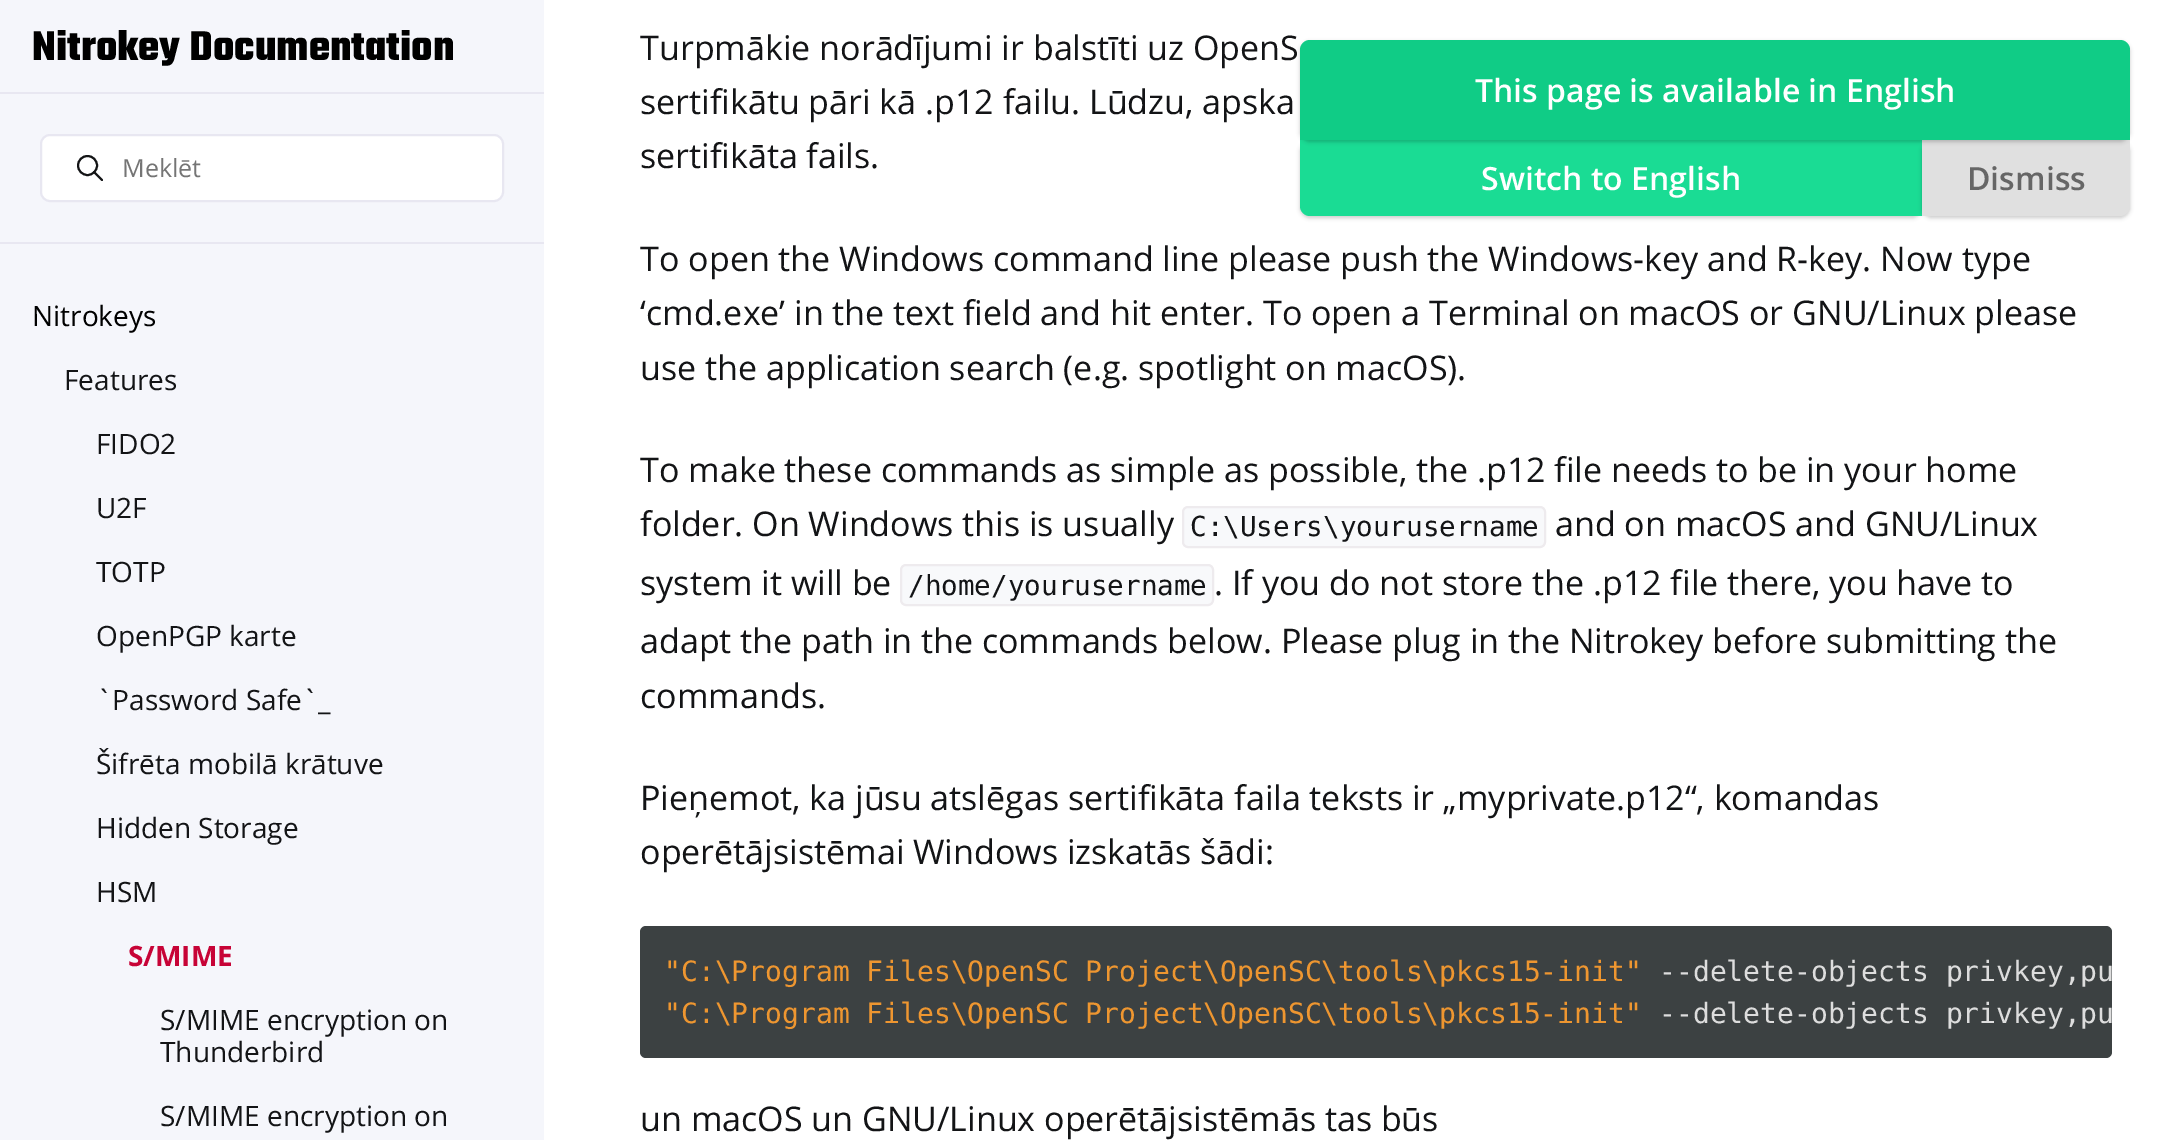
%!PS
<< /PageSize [2169 1140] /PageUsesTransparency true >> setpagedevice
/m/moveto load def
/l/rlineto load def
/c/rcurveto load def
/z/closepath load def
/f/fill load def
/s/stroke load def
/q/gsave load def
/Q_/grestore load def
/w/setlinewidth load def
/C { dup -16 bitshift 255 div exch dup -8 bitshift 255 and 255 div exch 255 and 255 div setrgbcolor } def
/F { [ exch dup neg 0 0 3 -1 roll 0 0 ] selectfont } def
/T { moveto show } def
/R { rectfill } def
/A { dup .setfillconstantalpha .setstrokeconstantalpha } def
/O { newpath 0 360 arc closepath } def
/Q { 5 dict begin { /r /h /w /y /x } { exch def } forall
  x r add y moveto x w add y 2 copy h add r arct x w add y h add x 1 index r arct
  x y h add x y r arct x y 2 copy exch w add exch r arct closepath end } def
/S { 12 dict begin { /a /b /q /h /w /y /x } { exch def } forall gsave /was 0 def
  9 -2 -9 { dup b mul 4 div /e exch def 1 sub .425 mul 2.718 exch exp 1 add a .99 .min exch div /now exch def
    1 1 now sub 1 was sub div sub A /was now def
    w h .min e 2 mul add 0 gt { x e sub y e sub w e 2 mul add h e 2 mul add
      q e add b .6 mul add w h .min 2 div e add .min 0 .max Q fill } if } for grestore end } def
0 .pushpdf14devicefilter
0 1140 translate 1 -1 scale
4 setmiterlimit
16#FFFFFF C
0 0 2169 1140 R
16#F5F6FB C
0 0 544 1140 R
16#E8E7F1 C
0 92 544 2 R
/Teko-Light 44.75 F
16#000000 C
(Nitrokey Documentation) 32 60 T
16#FFFFFF C
41 135 462 66 9 Q q f Q_
16#E8E7F1 C
2 w
s
16#131416 C
87.5 165.5 9.5 O s
1 setlinecap
1 setlinejoin
102 180 m -8 -8 l s
/OpenSans-Regular 25 F
16#757575 C
(Meklēt) 122 177 T
16#E8E7F1 C
0 242 544 2 R
/OpenSans-Regular 28 F
16#000000 C
(Nitrokeys) 32 326 T
16#131416 C
(Features) 64 390 T
(FIDO2) 96 454 T
(U2F) 96 518 T
(TOTP) 96 582 T
(OpenPGP karte) 96 646 T
(`Password Safe`_) 96 710 T
(Šifrēta mobilā krātuve) 96 774 T
(Hidden Storage) 96 838 T
(HSM) 96 902 T
/OpenSans-Bold 28 F
16#C70336 C
(S/MIME) 128 966 T
/OpenSans-Regular 28 F
16#131416 C
(S/MIME encryption on) 160 1030 T
(Thunderbird) 160 1062 T
(S/MIME encryption on) 160 1126 T
/OpenSans-Regular 34 F
(Turpmākie norādījumi ir balstīti uz OpenS) 640 60 T
(sertifikātu pāri kā .p12 failu. Lūdzu, apska) 640 114 T
(sertifikāta fails.) 640 168 T
(To open the Windows command line please push the Windows-key and R-key. Now type) 640 271 T
(‘cmd.exe’ in the text field and hit enter. To open a Terminal on macOS or GNU/Linux please) 640 325 T
(use the application search \(e.g. spotlight on macOS\).) 640 380 T
(To make these commands as simple as possible, the .p12 file needs to be in your home) 640 482 T
(folder. On Windows this is usually) 640 536 T
16#F8F9FB C
1183 507 362 40 5 Q q f Q_
16#EEEBEE C
0 setlinecap
0 setlinejoin
s
/DejaVuSansMono-Regular 27.6 F
16#131416 C
(C:\\Users\\yourusername) 1190 536 T
/OpenSans-Regular 34 F
(and on macOS and GNU/Linux) 1555 536 T
(system it will be) 640 595 T
16#F8F9FB C
901 565 312 40 5 Q q f Q_
16#EEEBEE C
s
/DejaVuSansMono-Regular 27.6 F
16#131416 C
(/home/yourusername) 908 595 T
/OpenSans-Regular 34 F
(. If you do not store the .p12 file there, you have to) 1214 595 T
(adapt the path in the commands below. Please plug in the Nitrokey before submitting the) 640 653 T
(commands.) 640 708 T
(Pieņemot, ka jūsu atslēgas sertifikāta faila teksts ir „myprivate.p12“, komandas) 640 810 T
(operētājsistēmai Windows izskatās šādi:) 640 864 T
16#3C4142 C
640 926 1472 132 6 Q f
/DejaVuSansMono-Regular 28 F
16#EE9630 C
("C:\\Program Files\\OpenSC Project\\OpenSC\\tools\\pkcs15-init") 664 981 T
16#DDDDDD C
(--delete-objects privkey,pu) 1659 981 T
16#EE9630 C
("C:\\Program Files\\OpenSC Project\\OpenSC\\tools\\pkcs15-init") 664 1023 T
16#DDDDDD C
(--delete-objects privkey,pu) 1659 1023 T
/OpenSans-Regular 34 F
16#131416 C
(un macOS un GNU/Linux operētājsistēmās tas būs) 640 1131 T
16#000000 C
1300 142 622 76 10 2 .2 S
16#1ADC94 C
1300 140 m 622 0 l 0 76 l -612 0 l -5.5 0 -10 -4.5 -10 -10 c z f
16#000000 C
1922 142 208 76 10 2 .2 S
16#E0E0E0 C
1922 140 m 208 0 l 0 66 l 0 5.5 -4.5 10 -10 10 c -198 0 l z f
16#000000 C
1300 42 830 100 10 2 .2 S
16#10CC86 C
1310 40 m 810 0 l 5.5 0 10 4.5 10 10 c 0 90 l -830 0 l 0 -90 l 0 -5.5 4.5 -10 10 -10 c z f
/OpenSans-SemiBold 32 F
16#FFFFFF C
(This page is available in English) 1475 102 T
(Switch to English) 1481 190 T
16#666666 C
(Dismiss) 1967 190 T
.poppdf14devicefilter showpage
